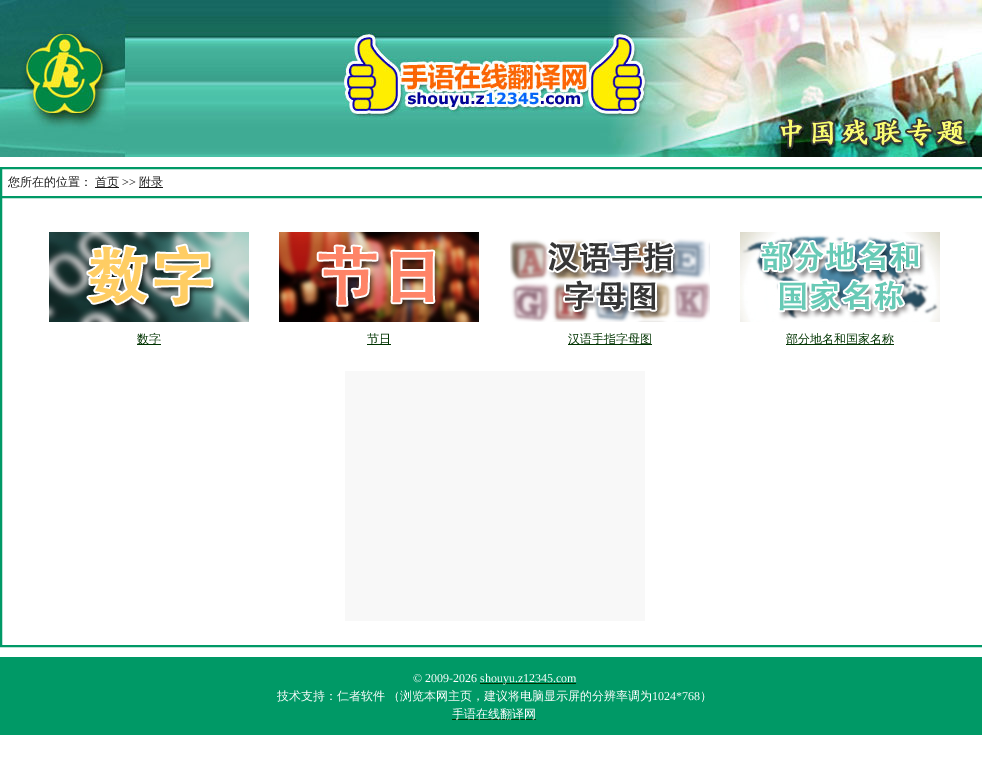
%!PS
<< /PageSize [982 761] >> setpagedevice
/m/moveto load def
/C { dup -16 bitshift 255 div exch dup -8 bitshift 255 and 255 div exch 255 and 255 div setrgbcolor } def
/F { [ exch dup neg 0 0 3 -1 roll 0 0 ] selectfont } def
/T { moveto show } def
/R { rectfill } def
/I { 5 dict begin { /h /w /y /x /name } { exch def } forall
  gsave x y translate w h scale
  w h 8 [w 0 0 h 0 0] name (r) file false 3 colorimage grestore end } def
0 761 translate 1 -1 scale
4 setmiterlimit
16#FFFFFF C
0 0 982 761 R
(1.rgb) 0 0 982 157 I
16#009966 C
.5 167.5 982 479 rectstroke
1.5 168.5 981 28 rectstroke
/WenQuanYiZenHei-Medium 12 F
16#1B1B1B C
(您所在的位置：) 8 186 T
95 187 24 1 R
(首页) 95 186 T
/LiberationSerif-Regular 12 F
(>>) 122 186 T
139 187 24 1 R
/WenQuanYiZenHei-Medium 12 F
(附录) 139 186 T
16#009966 C
1.5 197.5 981 448 rectstroke
(2.rgb) 49 232 200 90 I
16#003300 C
137 344 24 1 R
(数字) 137 343 T
(3.rgb) 279 232 200 90 I
367 344 24 1 R
(节日) 367 343 T
(4.rgb) 510 238 200 84 I
568 344 84 1 R
(汉语手指字母图) 568 343 T
(5.rgb) 740 232 200 90 I
786 344 108 1 R
(部分地名和国家名称) 786 343 T
16#F8F8F8 C
345 371 300 250 R
16#009966 C
0 657 982 78 R
/LiberationSerif-Regular 12 F
16#FFFFFF C
(© 2009-2026) 413 682 T
16#003300 C
480 683 96 1 R
16#FFFFFF C
(shouyu.z12345.com) 480 682 T
/WenQuanYiZenHei-Medium 12 F
277 700 m -1 0 32 (技术支持：仁者软件 （浏览本网主页，建议将电脑显示屏的分辨率调为) widthshow
/LiberationSerif-Regular 12 F
(1024*768) 652 700 T
/WenQuanYiZenHei-Medium 12 F
(）) 700 700 T
16#003300 C
452 719 84 1 R
16#FFFFFF C
(手语在线翻译网) 452 718 T
showpage
